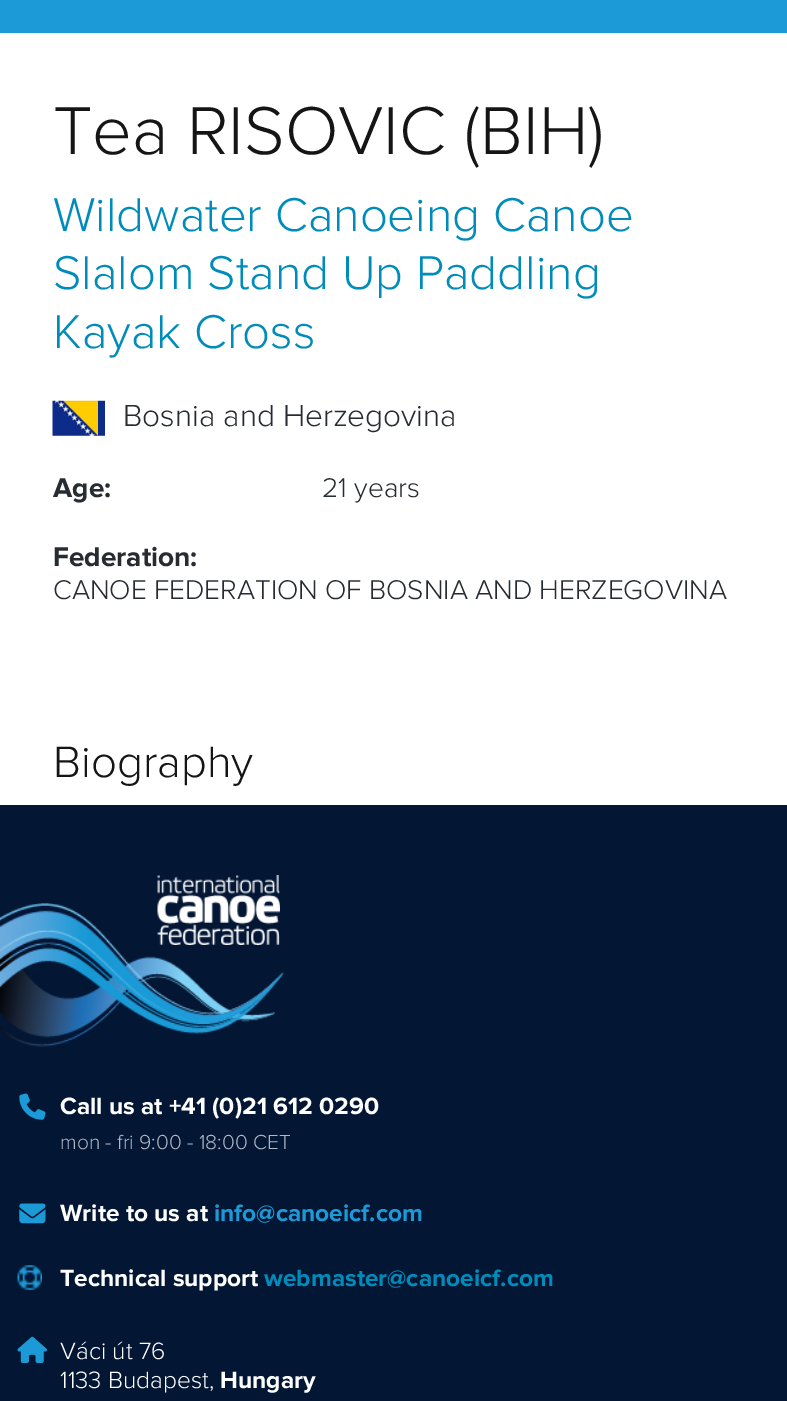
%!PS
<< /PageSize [787 1401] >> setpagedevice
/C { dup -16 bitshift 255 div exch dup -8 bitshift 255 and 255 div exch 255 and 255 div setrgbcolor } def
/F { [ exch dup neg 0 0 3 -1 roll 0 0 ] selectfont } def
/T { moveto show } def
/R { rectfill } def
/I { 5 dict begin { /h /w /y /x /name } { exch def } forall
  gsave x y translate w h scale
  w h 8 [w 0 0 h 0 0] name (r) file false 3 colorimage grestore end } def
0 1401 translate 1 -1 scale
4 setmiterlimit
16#FFFFFF C
0 0 787 1401 R
16#1C9AD7 C
0 0 787 33 R
/ProximaNova-Light 70 F
16#151515 C
(Tea RISOVIC \(BIH\)) 53 154 T
/ProximaNova-Light 49 F
16#008CBA C
(Wildwater Canoeing Canoe) 53 231 T
(Slalom Stand Up Paddling) 53 289 T
(Kayak Cross) 53 348 T
(1.rgb) 52 400 53 36 I
/ProximaNova-Light 31.5 F
16#272B32 C
(Bosnia and Herzegovina) 123 426 T
/ProximaNova-Bold 28 F
(Age:) 53 497 T
/ProximaNova-Light 28 F
(21 years) 322 497 T
/ProximaNova-Bold 28 F
(Federation:) 53 566 T
/ProximaNova-Light 28 F
(CANOE FEDERATION OF BOSNIA AND HERZEGOVINA) 53 599 T
/ProximaNova-Light 45.5 F
16#151515 C
(Biography) 53 777 T
16#031634 C
0 805 787 596 R
(2.rgb) 0 903 284 144 I
(3.rgb) 157 875 123 70 I
(4.rgb) 19 1093 27 27 I
/ProximaNova-Bold 24.5 F
16#FFFFFF C
(Call us at +41 \(0\)21 612 0290) 60 1114 T
/ProximaNova-Light 21 F
16#AFB8C6 C
(mon - fri 9:00 - 18:00 CET) 60 1149 T
(5.rgb) 19 1203 27 21 I
/ProximaNova-Bold 24.5 F
16#FFFFFF C
(Write to us at) 60 1221 T
16#1C9AD7 C
(info@canoeicf.com) 214 1221 T
(6.rgb) 17 1265 25 25 I
16#FFFFFF C
(Technical support) 60 1286 T
16#008CBA C
(webmaster@canoeicf.com) 264 1286 T
(7.rgb) 17 1336 30 27 I
/ProximaNova-Light 24.5 F
16#FFFFFF C
(Váci út 76) 60 1359 T
(1133 Budapest,) 60 1388 T
/ProximaNova-Bold 24.5 F
(Hungary) 220 1388 T
showpage
